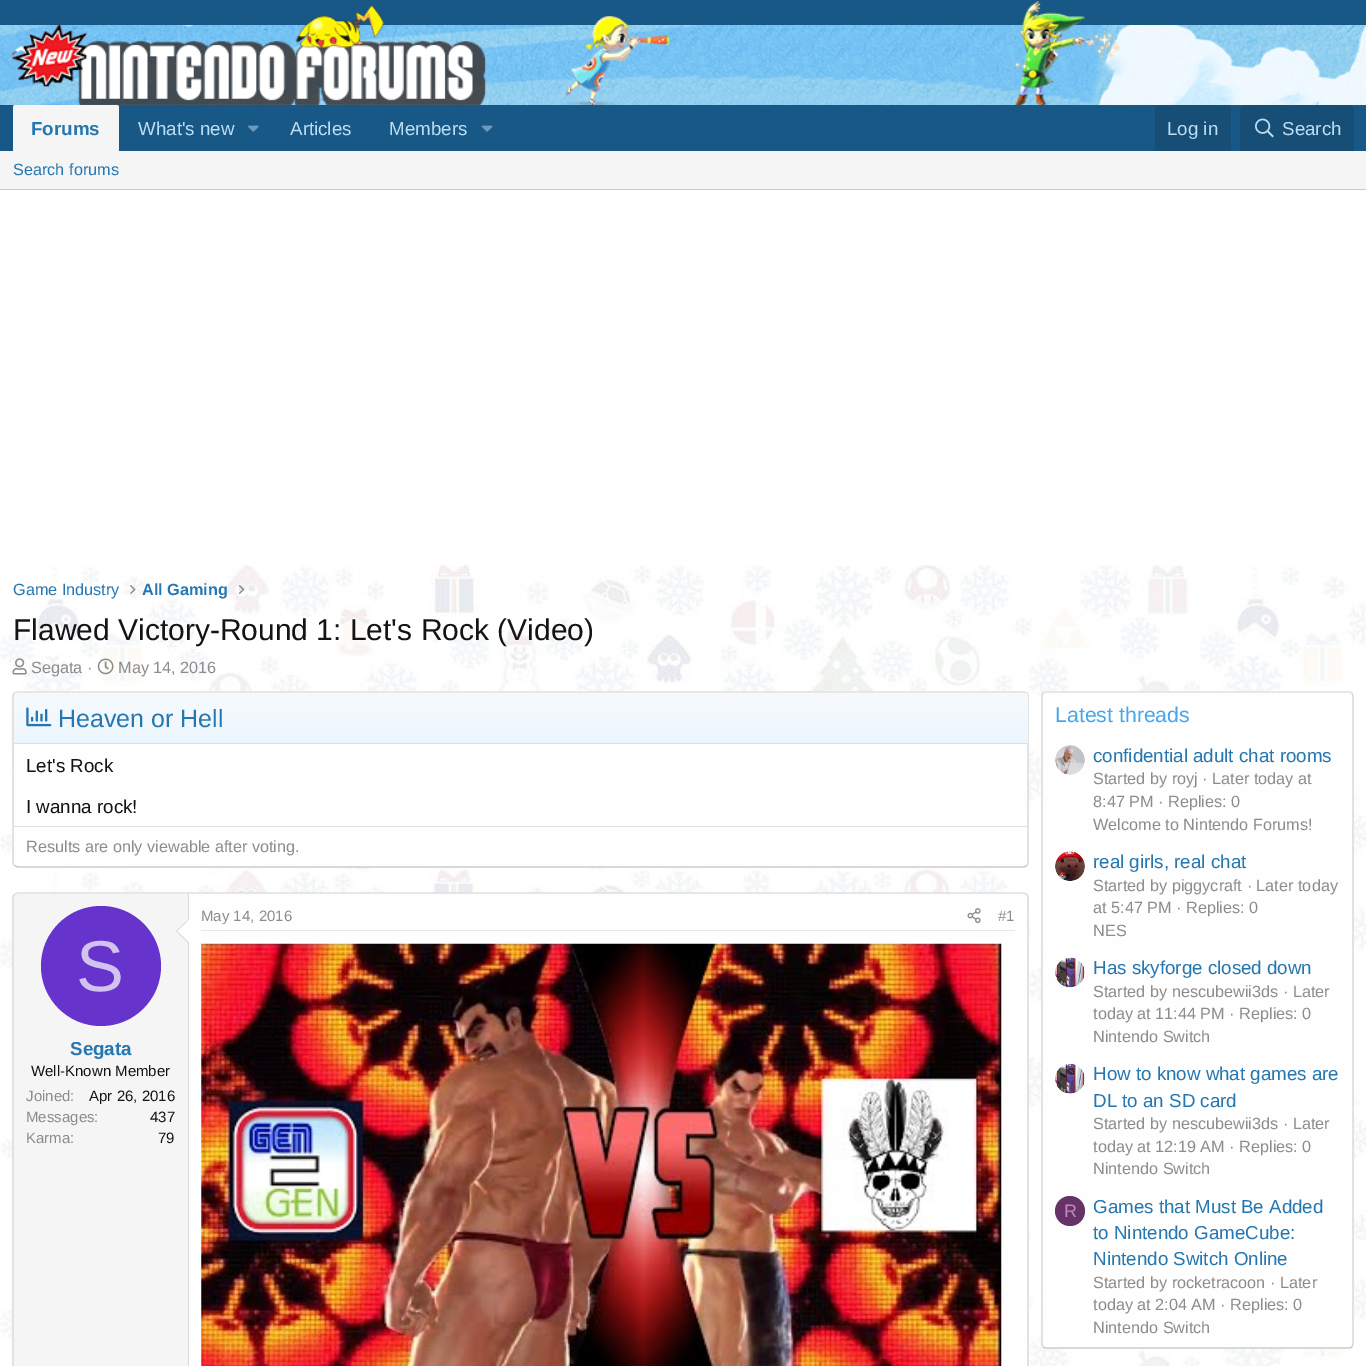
%!PS
<< /PageSize [1366 1366] >> setpagedevice
/m/moveto load def
/l/rlineto load def
/c/rcurveto load def
/z/closepath load def
/f/fill load def
/s/stroke load def
/q/gsave load def
/Q_/grestore load def
/w/setlinewidth load def
/C { dup -16 bitshift 255 div exch dup -8 bitshift 255 and 255 div exch 255 and 255 div setrgbcolor } def
/F { [ exch dup neg 0 0 3 -1 roll 0 0 ] selectfont } def
/T { moveto show } def
/R { rectfill } def
/O { newpath 0 360 arc closepath } def
/Q { 5 dict begin { /r /h /w /y /x } { exch def } forall
  x r add y moveto x w add y 2 copy h add r arct x w add y h add x 1 index r arct
  x y h add x y r arct x y 2 copy exch w add exch r arct closepath end } def
/I { 5 dict begin { /h /w /y /x /name } { exch def } forall
  gsave x y translate w h scale
  w h 8 [w 0 0 h 0 0] name (r) file false 3 colorimage grestore end } def
0 1366 translate 1 -1 scale
4 setmiterlimit
16#185886 C
0 0 1366 1366 R
16#FFFFFF C
0 190 1366 375 R
(1.rgb) 0 25 1366 80 I
(2.rgb) 12 1 1108 104 I
16#F5F5F5 C
15.5 105 m 101 0 l 1.5 0 2.5 1 2.5 2.5 c 0 43.5 l -106 0 l 0 -43.5 l 0 -1.5 1 -2.5 2.5 -2.5 c z f
/LiberationSans-Bold 18.75 F
16#2577B1 C
(Forums) 31 135 T
/LiberationSans-Regular 18.75 F
16#BCDEF5 C
(What's new) 138 135 T
(3.rgb) 248 125 11 7 I
(Articles) 290 135 T
(Members) 389 135 T
(4.rgb) 481 125 12 7 I
16#174E75 C
1160 105 m 66 0 l 3 0 5 2 5 5 c 0 41 l -76 0 l 0 -41 l 0 -3 2 -5 5 -5 c z f
16#BCDEF5 C
(Log in) 1167 135 T
16#174E75 C
1245 105 m 104 0 l 3 0 5 2 5 5 c 0 41 l -114 0 l 0 -41 l 0 -3 2 -5 5 -5 c z f
(5.rgb) 1255 118 19 20 I
16#BCDEF5 C
(Search) 1282 135 T
16#F5F5F5 C
0 151 1366 38 R
16#CBCBCB C
0 189 1366 1 R
/LiberationSans-Regular 16.25 F
16#2577B1 C
(Search forums) 13 175 T
(6.rgb) 0 565 1366 801 I
(Game Industry) 13 595 T
(7.rgb) 130 585 6 9 I
/LiberationSans-Bold 16.25 F
(All Gaming) 142 595 T
(8.rgb) 238 585 7 9 I
/LiberationSans-Regular 30 F
16#141414 C
(Flawed Victory-Round 1: Let's Rock \(Video\)) 13 640 T
(9.rgb) 12 658 15 17 I
/LiberationSans-Regular 16.25 F
16#8C8C8C C
(Segata ·) 31 673 T
(10.rgb) 97 658 17 17 I
(May 14, 2016) 118 673 T
16#FEFEFE C
13 691 1016 177 5 Q f
16#DFDFDF C
1.2 w
14.5 693 m 3 -1 l 1006.5 0 l 3 1 l s
16#D8D8D8 C
1027 693 m .5 1 1 2 1 3 c 0 166.5 l 0 1 -.5 2.5 -1 3 c s
16#CBCBCB C
1027 865.5 m -3 1.5 l -1006.5 0 l -3 -1.5 l s
16#D8D8D8 C
14.5 865.5 m -1 -.5 -1.5 -2 -1.5 -3 c 0 -166.5 l 0 -1 .5 -2 1.5 -3 c s
q 18 693 m 1006 0 l 2 0 4 2 4 4 c 0 46 l -1014 0 l 0 -46 l 0 -2 2 -4 4 -4 c z clip newpath
<< /ShadingType 2 /ColorSpace /DeviceRGB /Coords [521 743 521 693] /Extend [true true] /Function << /FunctionType 2 /Domain [0 1] /C0 [.929 .965 .992] /C1 [.965 .98 .996] /N 1 >> >> shfill Q_
16#DFDFDF C
14 743 1014 1 R
(11.rgb) 26 707 26 20 I
/LiberationSans-Regular 25 F
16#2577B1 C
(Heaven or Hell) 58 727 T
/LiberationSans-Regular 18.75 F
16#141414 C
(Let's Rock) 26 772 T
(I wanna rock!) 26 813 T
16#DFDFDF C
14 826 1014 1 R
/LiberationSans-Regular 16.25 F
16#8C8C8C C
(Results are only viewable after voting.) 26 852 T
16#FEFEFE C
13 893 1016 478 5 Q f
16#DFDFDF C
14.5 894.5 m 3 -1.5 l 1006.5 0 l 3 1.5 l s
16#D8D8D8 C
1027 894.5 m .5 .5 1 2 1 3 c 0 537.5 l 0 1 -.5 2.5 -1 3 c s
14.5 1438 m -1 -.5 -1.5 -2 -1.5 -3 c 0 -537.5 l 0 -1 .5 -2.5 1.5 -3 c s
16#E7E7E7 C
201 930 814 1 R
/LiberationSans-Regular 15 F
16#8C8C8C C
(May 14, 2016) 201 921 T
(12.rgb) 967 908 14 16 I
(#1) 998 921 T
(13.rgb) 201 943 801 423 I
16#F5F5F5 C
18 894 m 171 0 l 0 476 l -171 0 l -2 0 -4 -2 -4 -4 c 0 -468 l 0 -2 2 -4 4 -4 c z f
16#D8D8D8 C
188 894 1 472 R
189 919 m 0 25 l -13 -13 l z f
16#FEFEFE C
189 920 m 0 22.5 l -11.5 -11.5 l z f
16#6633CC C
101 966 60 O f
/LiberationSans-Regular 72 F
16#D1C2F0 C
(S) 76 991 T
/LiberationSans-Bold 18.75 F
16#2577B1 C
(Segata) 70 1055 T
/LiberationSans-Regular 15 F
16#141414 C
(Well-Known Member) 31 1076 T
16#8C8C8C C
(Joined:) 26 1101 T
16#141414 C
(Apr 26, 2016) 89 1101 T
16#8C8C8C C
(Messages:) 26 1122 T
16#141414 C
(437) 150 1122 T
16#8C8C8C C
(Karma:) 26 1143 T
16#141414 C
(79) 158 1143 T
16#FEFEFE C
1041 691 313 658 5 Q f
16#DFDFDF C
1043 693 m 1 -.5 2 -1 3 -1 c 303 0 l 1 0 2 .5 3 1 c s
16#D8D8D8 C
1352 693 m 1 3 l 0 648 l -1 3 l s
16#CBCBCB C
1352 1347 m -1 .5 -2 1 -3 1 c -303 0 l -1 0 -2 -.5 -3 -1 c s
16#D8D8D8 C
1043 1347 m -1 -3 l 0 -648 l 1 -3 l s
/LiberationSans-Regular 21.25 F
16#47A7EB C
(Latest threads) 1055 722 T
(14.rgb) 1055 745 30 30 I
/LiberationSans-Regular 18.75 F
16#2577B1 C
(confidential adult chat rooms) 1093 762 T
/LiberationSans-Regular 16.25 F
16#8C8C8C C
(Started by royj · Later today at) 1093 784 T
(8:47 PM · Replies: 0) 1093 807 T
(Welcome to Nintendo Forums!) 1093 830 T
(15.rgb) 1055 851 30 30 I
/LiberationSans-Regular 18.75 F
16#2577B1 C
(real girls, real chat) 1093 868 T
/LiberationSans-Regular 16.25 F
16#8C8C8C C
(Started by piggycraft · Later today) 1093 891 T
(at 5:47 PM · Replies: 0) 1093 913 T
(NES) 1093 936 T
(16.rgb) 1055 957 30 31 I
/LiberationSans-Regular 18.75 F
16#2577B1 C
(Has skyforge closed down) 1093 974 T
/LiberationSans-Regular 16.25 F
16#8C8C8C C
(Started by nescubewii3ds · Later) 1093 997 T
(today at 11:44 PM · Replies: 0) 1093 1019 T
(Nintendo Switch) 1093 1042 T
(17.rgb) 1055 1064 30 30 I
/LiberationSans-Regular 18.75 F
16#2577B1 C
(How to know what games are) 1093 1080 T
(DL to an SD card) 1093 1107 T
/LiberationSans-Regular 16.25 F
16#8C8C8C C
(Started by nescubewii3ds · Later) 1093 1129 T
(today at 12:19 AM · Replies: 0) 1093 1152 T
(Nintendo Switch) 1093 1174 T
16#663366 C
1070 1211 15 O f
/LiberationSans-Regular 18 F
16#C388C3 C
(R) 1064 1217 T
/LiberationSans-Regular 18.75 F
16#2577B1 C
(Games that Must Be Added) 1093 1213 T
(to Nintendo GameCube:) 1093 1239 T
(Nintendo Switch Online) 1093 1265 T
/LiberationSans-Regular 16.25 F
16#8C8C8C C
(Started by rocketracoon · Later) 1093 1288 T
(today at 2:04 AM · Replies: 0) 1093 1310 T
(Nintendo Switch) 1093 1333 T
showpage
